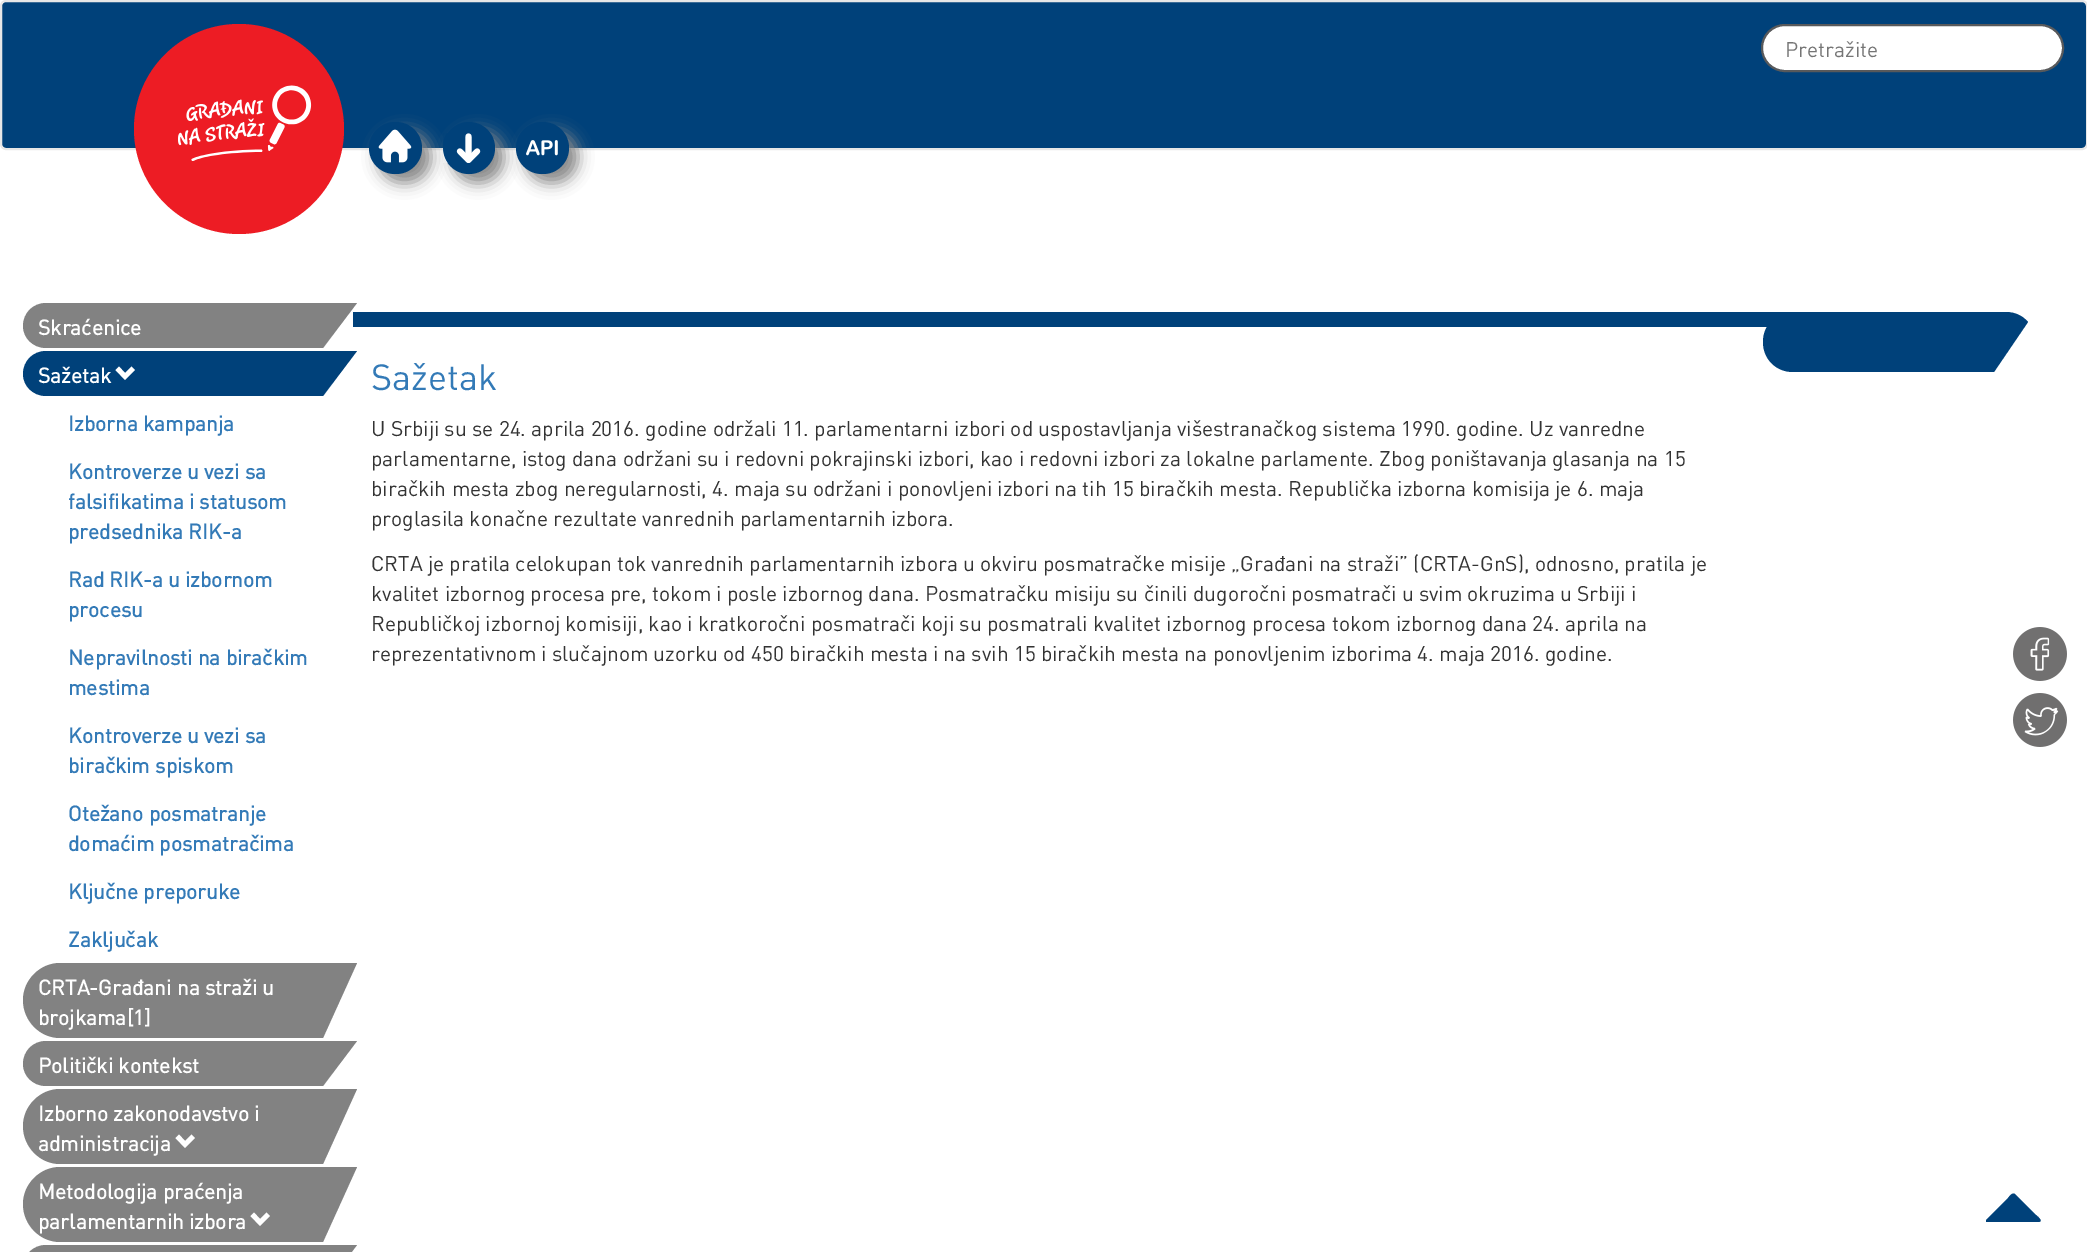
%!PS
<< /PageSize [2087 1252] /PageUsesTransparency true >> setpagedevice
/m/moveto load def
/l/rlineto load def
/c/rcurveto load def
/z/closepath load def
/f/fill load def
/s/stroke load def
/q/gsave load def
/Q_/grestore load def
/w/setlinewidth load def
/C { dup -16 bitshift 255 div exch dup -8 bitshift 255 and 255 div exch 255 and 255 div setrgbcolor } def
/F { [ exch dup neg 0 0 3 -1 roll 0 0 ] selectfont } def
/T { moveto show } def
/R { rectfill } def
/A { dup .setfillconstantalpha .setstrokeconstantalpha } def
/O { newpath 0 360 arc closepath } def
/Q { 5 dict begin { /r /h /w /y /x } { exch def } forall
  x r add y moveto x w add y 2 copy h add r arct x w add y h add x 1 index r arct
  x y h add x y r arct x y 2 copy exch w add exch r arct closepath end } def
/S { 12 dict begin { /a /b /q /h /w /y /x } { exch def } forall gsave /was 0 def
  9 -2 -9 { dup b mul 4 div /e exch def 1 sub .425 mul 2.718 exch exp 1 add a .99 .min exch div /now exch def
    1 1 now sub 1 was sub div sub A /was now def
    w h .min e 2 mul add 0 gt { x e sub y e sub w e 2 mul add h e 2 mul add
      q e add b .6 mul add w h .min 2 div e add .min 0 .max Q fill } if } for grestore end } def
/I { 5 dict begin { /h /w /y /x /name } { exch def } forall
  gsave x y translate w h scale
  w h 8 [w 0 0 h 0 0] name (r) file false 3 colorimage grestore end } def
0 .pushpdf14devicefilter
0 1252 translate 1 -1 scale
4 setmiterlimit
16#FFFFFF C
0 0 2087 1252 R
16#00417A C
1 1 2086 148 5 Q q f Q_
16#E7E7E7 C
2 w
s
16#ED1C24 C
239 129 105 O f
(1.rgb) 178 85 134 76 I
16#888888 C
378 131 53 52 26 7.5 1 S
452 131 52 52 26 7.5 1 S
525 131 53 52 26 7.5 1 S
16#00417A C
369 122 53 52 26 Q f
469 148 26 O f
516 122 53 52 26 Q f
(2.rgb) 378 129 34 34 I
(3.rgb) 443 133 38 30 I
(4.rgb) 526 140 32 16 I
16#FFFFFF C
1762 25 301 46 23 Q q f Q_
16#58595B C
s
/DIN-Regular 21 F
16#757575 C
(Pretražite) 1785 57 T
16#828282 C
46 303 m -13 0 -23 10 -23 23 c 0 12 10 22 23 22 c 277 0 l 34 -45 l z f
/DIN-Bold 21 F
16#FFFFFF C
(Skraćenice) 38 335 T
16#00417A C
46 351 m -13 0 -23 10 -23 23 c 0 12 10 22 23 22 c 277 0 l 34 -45 l z f
16#FFFFFF C
(Sažetak) 38 383 T
135 370 m -10 10 l -9.5 -10 l 3.5 -3.5 l 6 6.5 l 6.5 -6.5 l z f
16#337AB7 C
(Izborna kampanja) 68 431 T
(Kontroverze u vezi sa) 68 479 T
(falsifikatima i statusom) 68 509 T
(predsednika RIK-a) 68 539 T
(Rad RIK-a u izbornom) 68 587 T
(procesu) 68 617 T
(Nepravilnosti na biračkim) 68 665 T
(mestima) 68 695 T
(Kontroverze u vezi sa) 68 743 T
(biračkim spiskom) 68 773 T
(Otežano posmatranje) 68 821 T
(domaćim posmatračima) 68 851 T
(Ključne preporuke) 68 899 T
(Zaključak) 68 947 T
16#828282 C
60 963 m -20 0 -37 17 -37 37 c 0 21 17 38 37 38 c 263 0 l 34 -75 l z f
16#FFFFFF C
(CRTA-Građani na straži u) 38 995 T
(brojkama[1]) 38 1025 T
16#828282 C
46 1041 m -13 0 -23 10 -23 23 c 0 12 10 22 23 22 c 277 0 l 34 -45 l z f
16#FFFFFF C
(Politički kontekst) 38 1073 T
16#828282 C
60 1089 m -20 0 -37 17 -37 37 c 0 21 17 38 37 38 c 263 0 l 34 -75 l z f
16#FFFFFF C
(Izborno zakonodavstvo i) 38 1121 T
(administracija) 38 1151 T
195 1138 m -10 10 l -9.5 -10 l 3.5 -3.5 l 6 6.5 l 6.5 -6.5 l z f
16#828282 C
60 1167 m -20 0 -37 17 -37 37 c 0 21 17 38 37 38 c 263 0 l 34 -75 l z f
16#FFFFFF C
(Metodologija praćenja) 38 1199 T
(parlamentarnih izbora) 38 1229 T
270 1216 m -10 10 l -9.5 -10 l 3.5 -3.5 l 6 6.5 l 6.5 -6.5 l z f
16#828282 C
46 1245 m -13 0 -23 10 -23 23 c 0 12 10 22 23 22 c 277 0 l 34 -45 l z f
16#00417A C
353 312 1440 15 R
/DIN-Regular 36 F
16#337AB7 C
(Sažetak) 371 390 T
/DIN-Regular 21 F
16#333333 C
(U Srbiji su se 24. aprila 2016. godine održali 11. parlamentarni izbori od uspostavljanja višestranačkog sistema 1990. godine. Uz vanredne) 371 436 T
(parlamentarne, istog dana održani su i redovni pokrajinski izbori, kao i redovni izbori za lokalne parlamente. Zbog poništavanja glasanja na 15) 371 466 T
(biračkih mesta zbog neregularnosti, 4. maja su održani i ponovljeni izbori na tih 15 biračkih mesta. Republička izborna komisija je 6. maja) 371 496 T
(proglasila konačne rezultate vanrednih parlamentarnih izbora.) 371 526 T
(CRTA je pratila celokupan tok vanrednih parlamentarnih izbora u okviru posmatračke misije „Građani na straži” \(CRTA-GnS\), odnosno, pratila je) 371 571 T
(kvalitet izbornog procesa pre, tokom i posle izbornog dana. Posmatračku misiju su činili dugoročni posmatrači u svim okruzima u Srbiji i) 371 601 T
(Republičkoj izbornoj komisiji, kao i kratkoročni posmatrači koji su posmatrali kvalitet izbornog procesa tokom izbornog dana 24. aprila na) 371 631 T
(reprezentativnom i slučajnom uzorku od 450 biračkih mesta i na svih 15 biračkih mesta na ponovljenim izborima 4. maja 2016. godine.) 371 661 T
16#00417A C
1793 312 m -17 0 -30 13 -30 30 c 0 17 13 30 30 30 c 201 0 l 34 -50 l -5 -6 -13 -10 -22 -10 c z f
(5.rgb) 2013 627 54 54 I
(6.rgb) 2013 693 54 54 I
2015 1194 m 21 21 l 0 0 9 7 2 7 c -50 0 l -2 0 l 0 -2 l 22 -22 l 1 -1 4 -6 7 -4 c z f
.poppdf14devicefilter showpage
